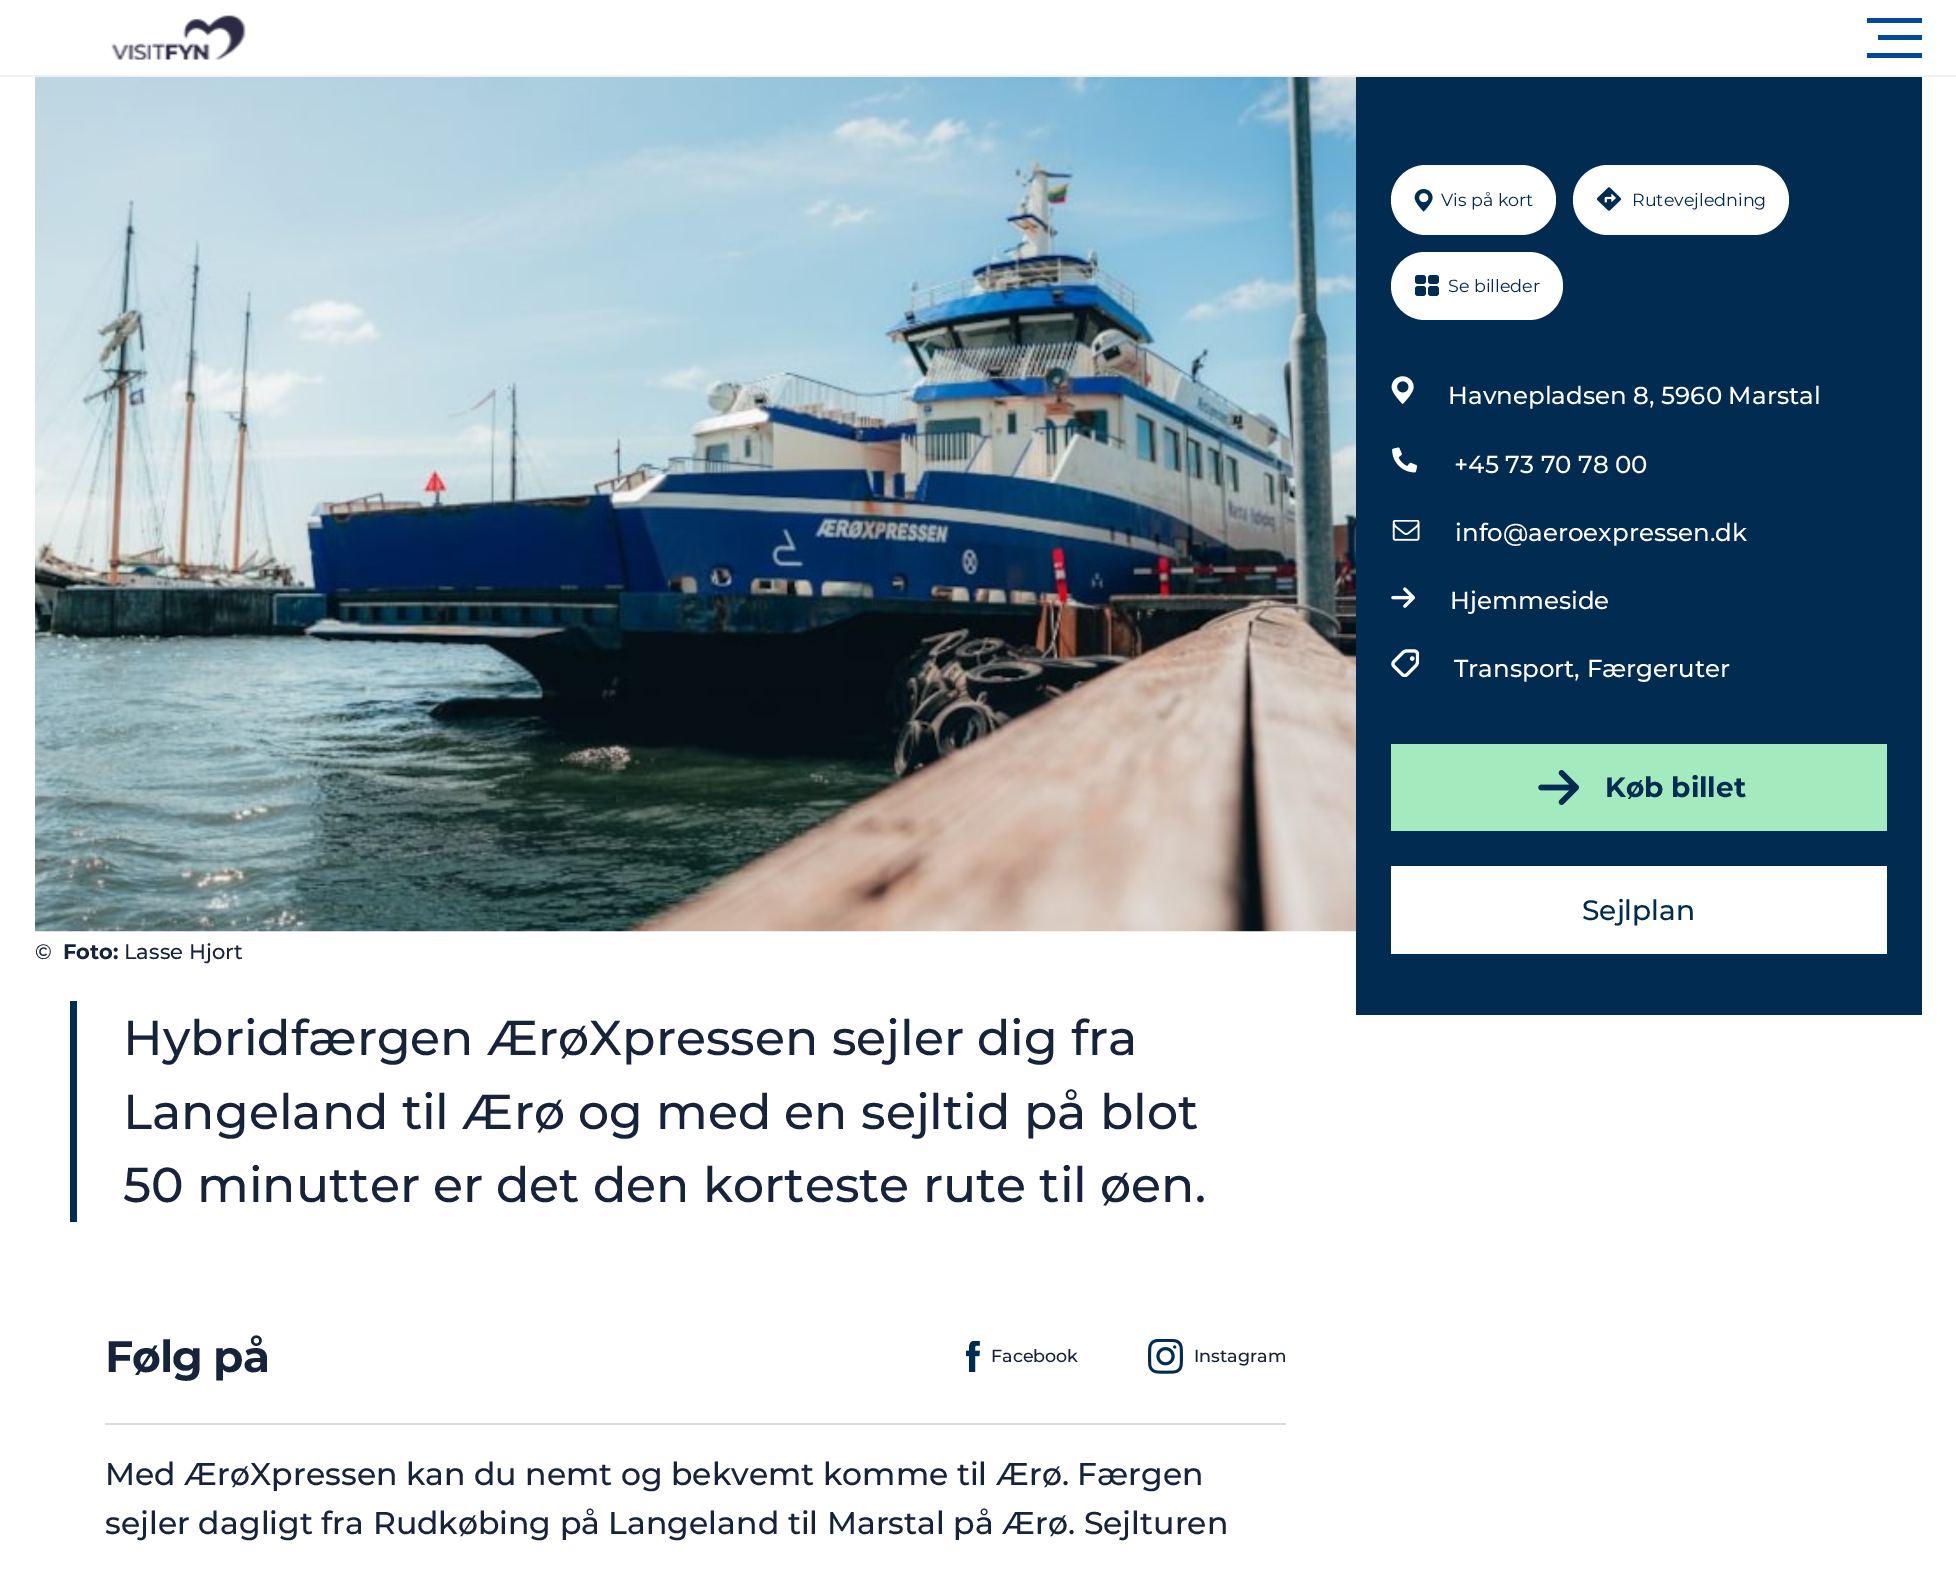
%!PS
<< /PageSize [1956 1572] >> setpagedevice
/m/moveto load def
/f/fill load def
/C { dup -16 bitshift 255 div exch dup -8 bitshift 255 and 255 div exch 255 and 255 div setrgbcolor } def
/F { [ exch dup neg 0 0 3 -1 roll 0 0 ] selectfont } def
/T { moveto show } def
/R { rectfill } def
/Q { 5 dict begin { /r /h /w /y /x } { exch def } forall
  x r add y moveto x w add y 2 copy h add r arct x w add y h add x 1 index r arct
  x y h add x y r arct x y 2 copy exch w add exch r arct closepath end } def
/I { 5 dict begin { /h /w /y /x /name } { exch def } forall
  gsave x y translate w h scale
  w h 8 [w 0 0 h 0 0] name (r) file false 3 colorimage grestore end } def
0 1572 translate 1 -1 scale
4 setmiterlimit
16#FFFFFF C
0 0 1956 1572 R
16#F0F1F3 C
0 75 1956 2 R
(1.rgb) 111 15 135 45 I
16#004A98 C
1867 18 55 5 R
1878 35 44 5 R
1867 53 55 5 R
16#022B52 C
1356 77 566 938 R
16#FFFFFF C
1391 165 165 70 35 Q f
(2.rgb) 1414 189 19 23 I
/Montserrat-Regular 17.5 F
16#022B52 C
(Vis på kort) 1441 206 T
16#FFFFFF C
1573 165 216 70 35 Q f
(3.rgb) 1596 187 26 24 I
16#022B52 C
(Rutevejledning) 1632 206 T
16#FFFFFF C
1391 252 172 68 34 Q f
16#022B52 C
1428 275 11 9 3 Q f
1428 286 11 10 3 Q f
1415 275 11 9 3 Q f
1415 286 11 10 3 Q f
(Se billeder) 1448 292 T
(4.rgb) 1391 376 23 28 I
/Montserrat-Medium 24.5 F
16#FFFFFF C
(Havnepladsen 8, 5960 Marstal) 1448 404 T
(5.rgb) 1392 447 26 26 I
(+45 73 70 78 00) 1454 473 T
(6.rgb) 1392 520 28 21 I
(info@aeroexpressen.dk) 1455 541 T
(7.rgb) 1391 587 25 21 I
(Hjemmeside) 1450 609 T
(8.rgb) 1391 649 28 28 I
(Transport, Færgeruter) 1454 677 T
16#A3EABF C
1391 744 496 87 R
(9.rgb) 1538 770 42 35 I
/Montserrat-Bold 28 F
16#022B52 C
(Køb billet) 1605 797 T
16#FFFFFF C
1391 866 496 88 R
/Montserrat-Medium 28 F
16#022B52 C
(Sejlplan) 1582 920 T
(10.rgb) 35 77 1321 855 I
/Montserrat-Medium 21 F
16#16233B C
(©) 35 959 T
/Montserrat-Bold 21 F
(Foto:) 63 959 T
/Montserrat-Medium 21 F
(Lasse Hjort) 124 959 T
16#022B52 C
70 1001 7 221 R
/Montserrat-Medium 49 F
16#16233B C
(Hybridfærgen ÆrøXpressen sejler dig fra) 123 1055 T
(Langeland til Ærø og med en sejltid på blot) 123 1129 T
(50 minutter er det den korteste rute til øen.) 123 1202 T
16#D8DADC C
105 1423 1181 2 R
/Montserrat-Bold 44 F
16#16233B C
105 1372 m -1 0 (Følg på) ashow
(11.rgb) 966 1341 14 31 I
/Montserrat-Medium 17.5 F
(Facebook) 991 1362 T
(12.rgb) 1148 1339 35 35 I
(Instagram) 1194 1362 T
/Montserrat-Medium 31.5 F
(Med ÆrøXpressen kan du nemt og bekvemt komme til Ærø. Færgen) 105 1485 T
(sejler dagligt fra Rudkøbing på Langeland til Marstal på Ærø. Sejlturen) 105 1534 T
showpage
